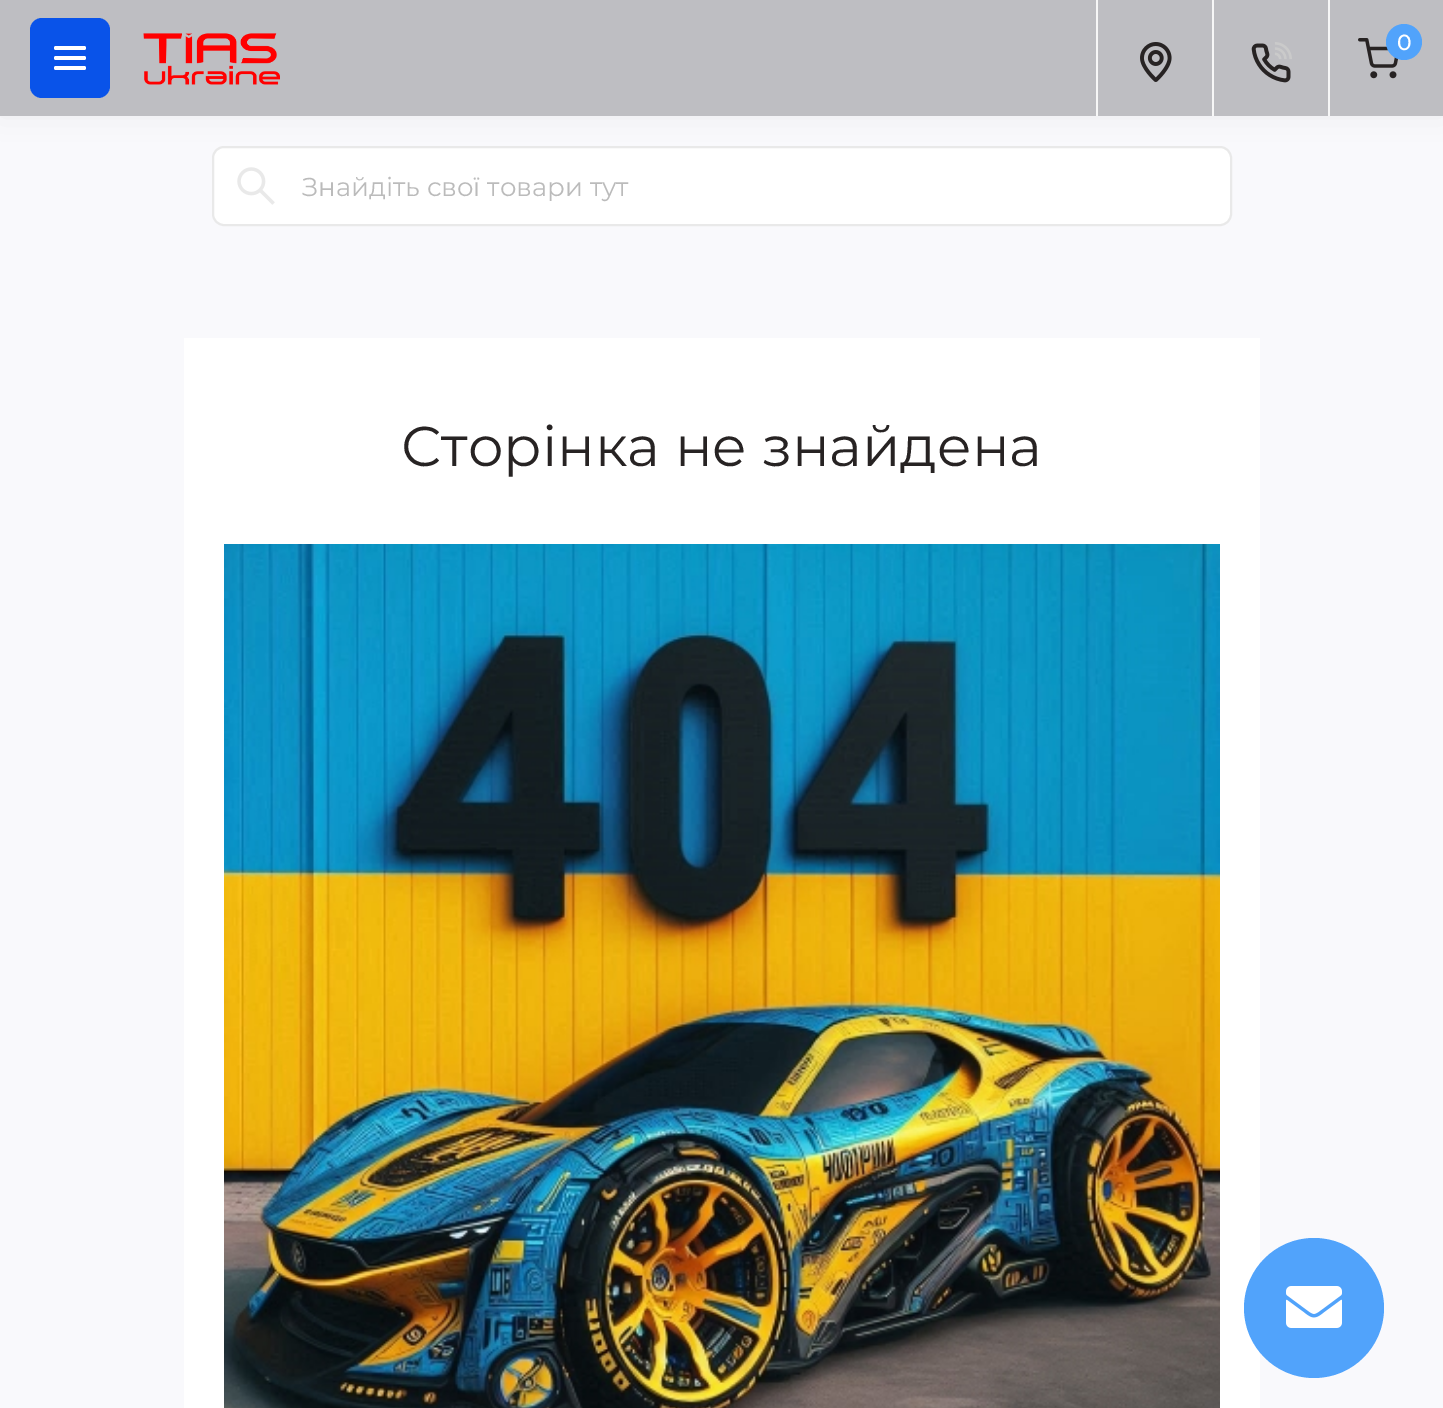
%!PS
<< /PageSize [1443 1408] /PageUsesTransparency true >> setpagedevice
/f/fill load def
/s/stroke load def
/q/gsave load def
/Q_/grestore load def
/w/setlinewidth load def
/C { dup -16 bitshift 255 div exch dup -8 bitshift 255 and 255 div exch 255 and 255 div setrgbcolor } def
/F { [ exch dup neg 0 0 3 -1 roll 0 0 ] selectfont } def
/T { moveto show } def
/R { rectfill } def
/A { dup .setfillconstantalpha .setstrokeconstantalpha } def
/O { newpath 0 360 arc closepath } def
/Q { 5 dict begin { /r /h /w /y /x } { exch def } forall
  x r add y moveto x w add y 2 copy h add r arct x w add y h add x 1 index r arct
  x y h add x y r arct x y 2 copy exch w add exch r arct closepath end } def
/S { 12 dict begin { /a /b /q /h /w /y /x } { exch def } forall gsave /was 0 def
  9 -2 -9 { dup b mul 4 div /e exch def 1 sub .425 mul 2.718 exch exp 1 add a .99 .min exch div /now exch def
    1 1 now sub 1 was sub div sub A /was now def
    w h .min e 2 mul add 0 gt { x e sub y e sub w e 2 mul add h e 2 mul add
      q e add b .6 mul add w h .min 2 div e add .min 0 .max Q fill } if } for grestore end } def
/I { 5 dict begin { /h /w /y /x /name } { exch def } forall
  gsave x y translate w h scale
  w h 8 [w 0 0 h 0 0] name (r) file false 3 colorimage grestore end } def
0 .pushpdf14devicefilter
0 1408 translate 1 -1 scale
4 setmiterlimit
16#F9F9FC C
0 0 1443 1408 R
16#FFFFFF C
213 147 1018 78 11 Q q f Q_
16#E9E9E9 C
2 w
s
16#000000 C
0 0 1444 116 0 15 .06 S
16#BEBEC2 C
0 0 1443 116 R
16#0953E9 C
30 18 80 80 12 Q f
16#FFFFFF C
54 46 32 4 2 Q f
54 56 32 4 2 Q f
54 66 32 4 2 Q f
16#F7F7F7 C
1096 0 2 116 R
(1.rgb) 1140 42 32 40 I
1212 0 2 116 R
(2.rgb) 1251 42 41 41 I
(3.rgb) 143 33 137 52 I
1328 0 2 116 R
(4.rgb) 1358 38 40 41 I
16#51A3FB C
1404 42 18 O f
/Montserrat-Medium 22 F
16#FFFFFF C
(0) 1397 50 T
(5.rgb) 237 167 38 38 I
/Montserrat-Regular 26 F
16#BBBBBB C
(Знайдіть свої товари тут) 302 196 T
16#FFFFFF C
184 338 1076 1070 R
/Montserrat-Regular 56 F
16#272323 C
(Сторінка не знайдена) 401 466 T
(6.rgb) 224 544 996 864 I
16#51A3FB C
1314 1308 70 O f
(7.rgb) 1286 1286 56 42 I
.poppdf14devicefilter showpage
